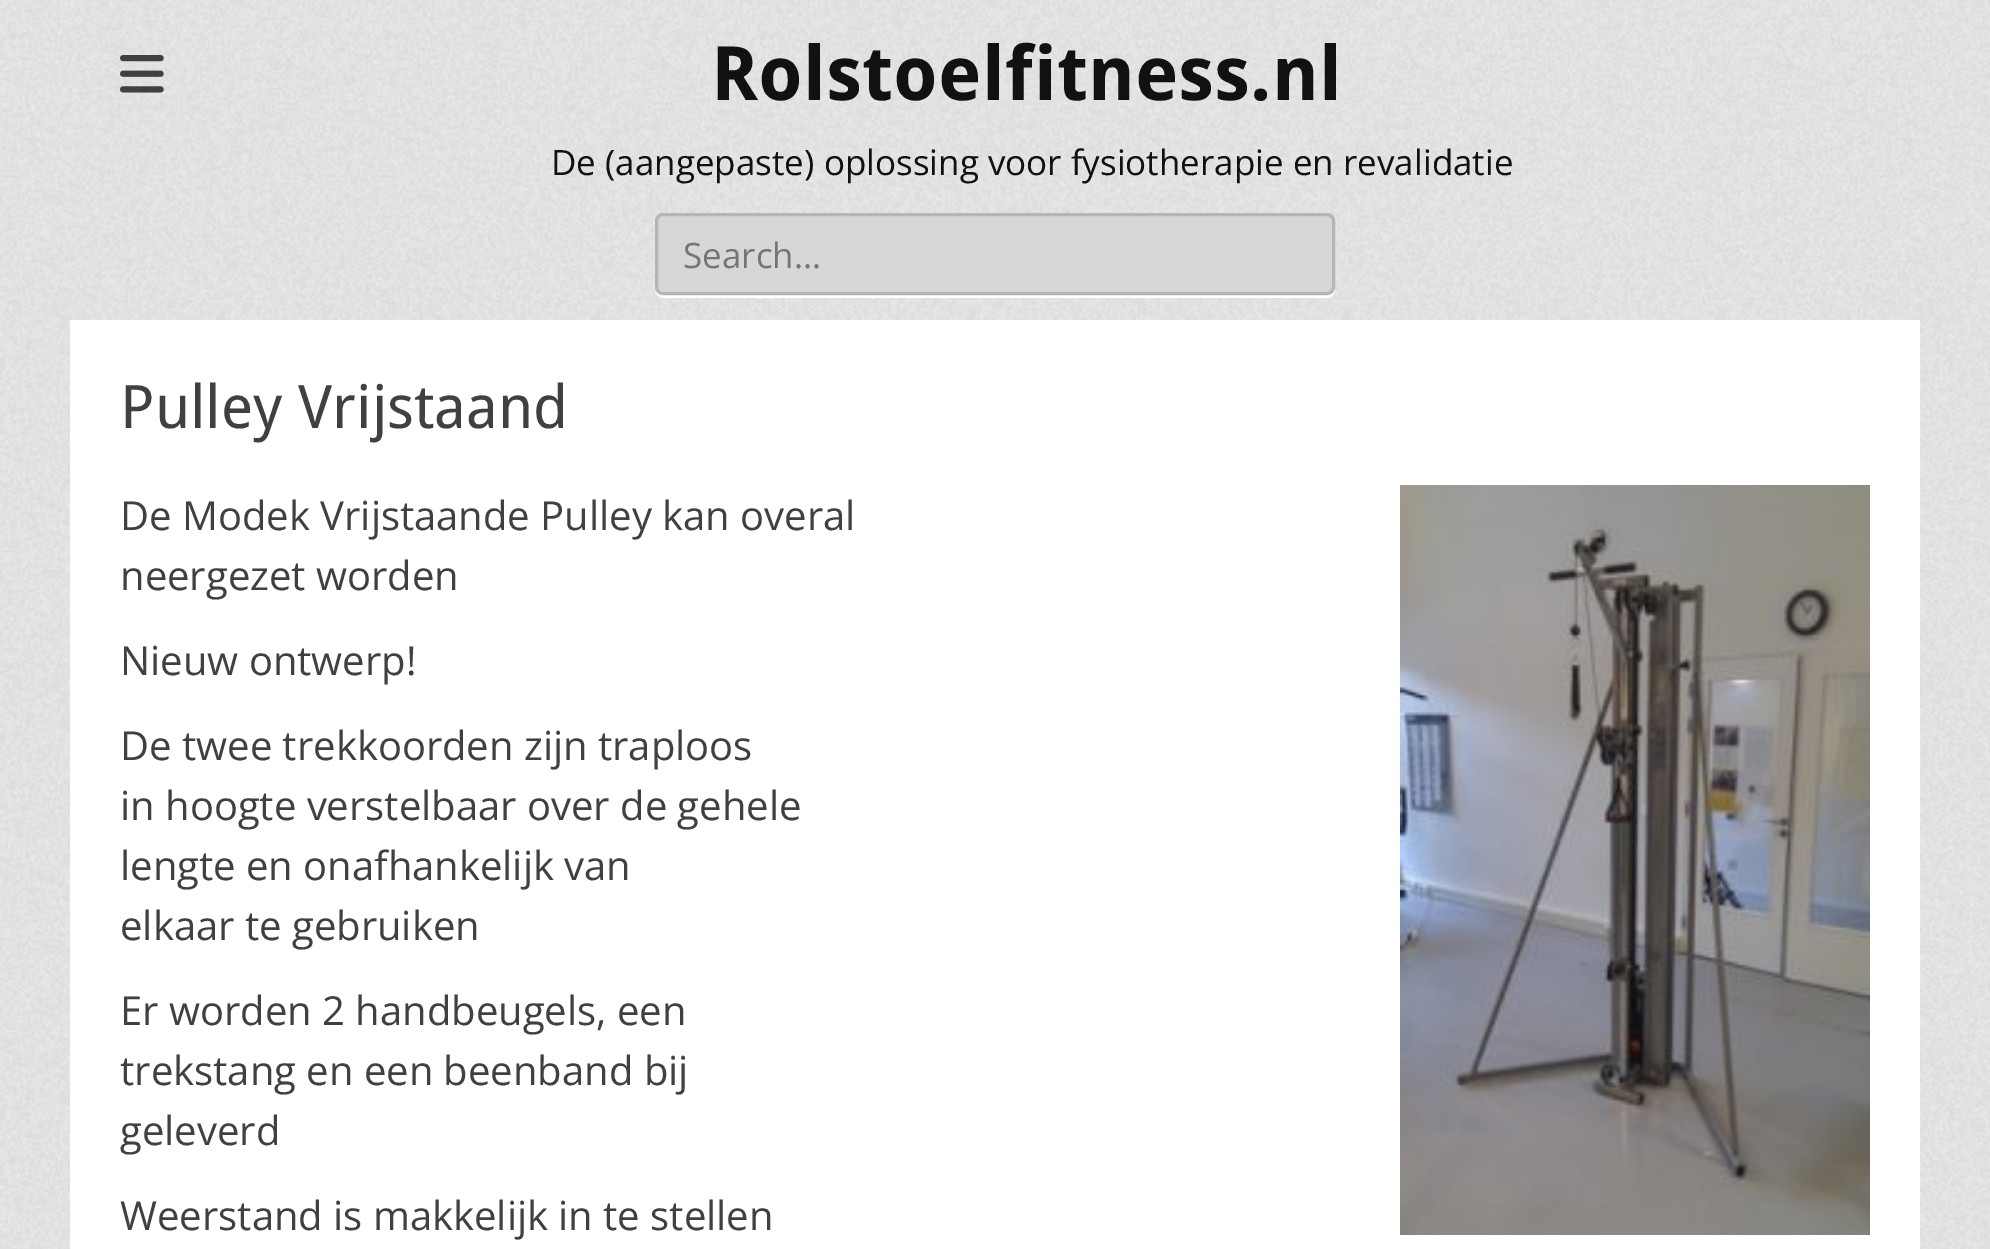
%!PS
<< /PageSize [1990 1249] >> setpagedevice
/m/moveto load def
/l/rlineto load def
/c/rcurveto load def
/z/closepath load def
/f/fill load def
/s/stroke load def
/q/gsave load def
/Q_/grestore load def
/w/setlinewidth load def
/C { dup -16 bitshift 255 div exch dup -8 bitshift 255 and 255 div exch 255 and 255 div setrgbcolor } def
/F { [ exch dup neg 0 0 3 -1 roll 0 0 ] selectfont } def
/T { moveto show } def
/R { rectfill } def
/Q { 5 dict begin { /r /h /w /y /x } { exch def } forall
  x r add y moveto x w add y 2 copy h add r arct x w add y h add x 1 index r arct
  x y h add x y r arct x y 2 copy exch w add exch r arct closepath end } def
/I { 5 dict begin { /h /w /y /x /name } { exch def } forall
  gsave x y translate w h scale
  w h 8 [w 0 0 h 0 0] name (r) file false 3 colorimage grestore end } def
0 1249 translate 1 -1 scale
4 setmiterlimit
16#FFFFFF C
0 0 1990 1249 R
(1.rgb) 0 0 1990 1249 I
(2.rgb) 120 55 44 38 I
/DroidSans-Bold 75 F
16#111111 C
(Rolstoelfitness.nl) 711 100 T
/OpenSans-Regular 35 F
(De \(aangepaste\) oplossing voor fysiotherapie en revalidatie) 551 175 T
16#FFFFFF C
655 288 m 0 2 l 0 4 4 8 8 8 c 664 0 l 4 0 8 -4 8 -8 c 0 -2 l 0 4 -3 7 -7 7 c -666 0 l -4 0 -7 -3 -7 -7 c z f
16#D7D7D7 C
656.5 214.5 677 79 6.5 Q q f Q_
16#B6B6B6 C
3 w
s
16#757575 C
(Search...) 683 268 T
16#FFFFFF C
70 320 1850 929 R
/DroidSans-Regular 60 F
16#404040 C
(Pulley Vrijstaand) 120 428 T
/OpenSans-Regular 40 F
(De Modek Vrijstaande Pulley kan overal) 120 530 T
(3.rgb) 1400 485 470 750 I
(neergezet worden) 120 590 T
(Nieuw ontwerp!) 120 675 T
(De twee trekkoorden zijn traploos) 120 760 T
(in hoogte verstelbaar over de gehele) 120 820 T
(lengte en onafhankelijk van) 120 880 T
(elkaar te gebruiken) 120 940 T
(Er worden 2 handbeugels, een) 120 1025 T
(trekstang en een beenband bij) 120 1085 T
(geleverd) 120 1145 T
(Weerstand is makkelijk in te stellen) 120 1230 T
showpage
